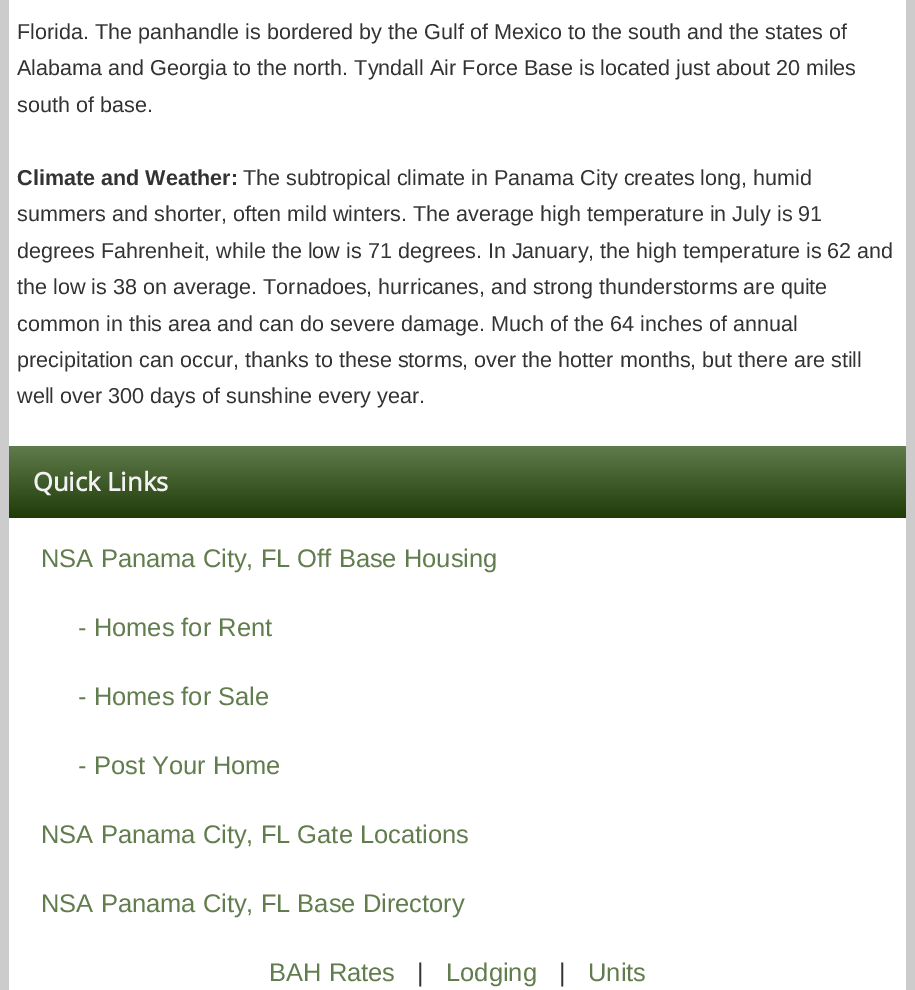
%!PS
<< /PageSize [915 990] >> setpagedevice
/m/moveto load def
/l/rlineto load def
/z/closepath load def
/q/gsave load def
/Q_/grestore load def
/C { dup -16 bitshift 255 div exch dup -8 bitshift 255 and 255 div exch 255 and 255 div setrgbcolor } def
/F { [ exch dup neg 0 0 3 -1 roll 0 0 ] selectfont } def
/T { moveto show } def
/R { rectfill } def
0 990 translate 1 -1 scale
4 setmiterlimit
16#CCCCCC C
0 0 915 990 R
16#FFFFFF C
9 0 897 990 R
/LiberationSans-Regular 21.6 F
16#333333 C
(Florida. The panhandle is bordered by the Gulf of Mexico to the south and the states of) 17 39 T
(Alabama and Georgia to the north. Tyndall Air Force Base is located just about 20 miles) 17 75 T
(south of base.) 17 112 T
/LiberationSans-Bold 21.6 F
(Climate and Weather:) 17 185 T
/LiberationSans-Regular 21.6 F
(The subtropical climate in Panama City creates long, humid) 243 185 T
(summers and shorter, often mild winters. The average high temperature in July is 91) 17 221 T
(degrees Fahrenheit, while the low is 71 degrees. In January, the high temperature is 62 and) 17 258 T
(the low is 38 on average. Tornadoes, hurricanes, and strong thunderstorms are quite) 17 294 T
(common in this area and can do severe damage. Much of the 64 inches of annual) 17 331 T
(precipitation can occur, thanks to these storms, over the hotter months, but there are still) 17 367 T
(well over 300 days of sunshine every year.) 17 403 T
q 9 446 m 897 0 l 0 72 l -897 0 l z clip newpath
<< /ShadingType 2 /ColorSpace /DeviceRGB /Coords [458 445 458 518] /Extend [true true] /Function << /FunctionType 2 /Domain [0 1] /C0 [.384 .49 .302] /C1 [.122 .231 .031] /N 1 >> >> shfill Q_
/OpenSans-Bold 25.5 F
16#F2F2F2 C
(Quick Links) 33 491 T
/LiberationSans-Regular 25.5 F
16#627D4D C
(NSA Panama City, FL Off Base Housing) 41 567 T
(- Homes for Rent) 78 636 T
(- Homes for Sale) 78 705 T
(- Post Your Home) 78 774 T
(NSA Panama City, FL Gate Locations) 41 843 T
(NSA Panama City, FL Base Directory) 41 912 T
(BAH Rates) 269 981 T
16#333333 C
(|) 417 981 T
16#627D4D C
(Lodging) 446 981 T
16#333333 C
(|) 559 981 T
16#627D4D C
(Units) 588 981 T
showpage
